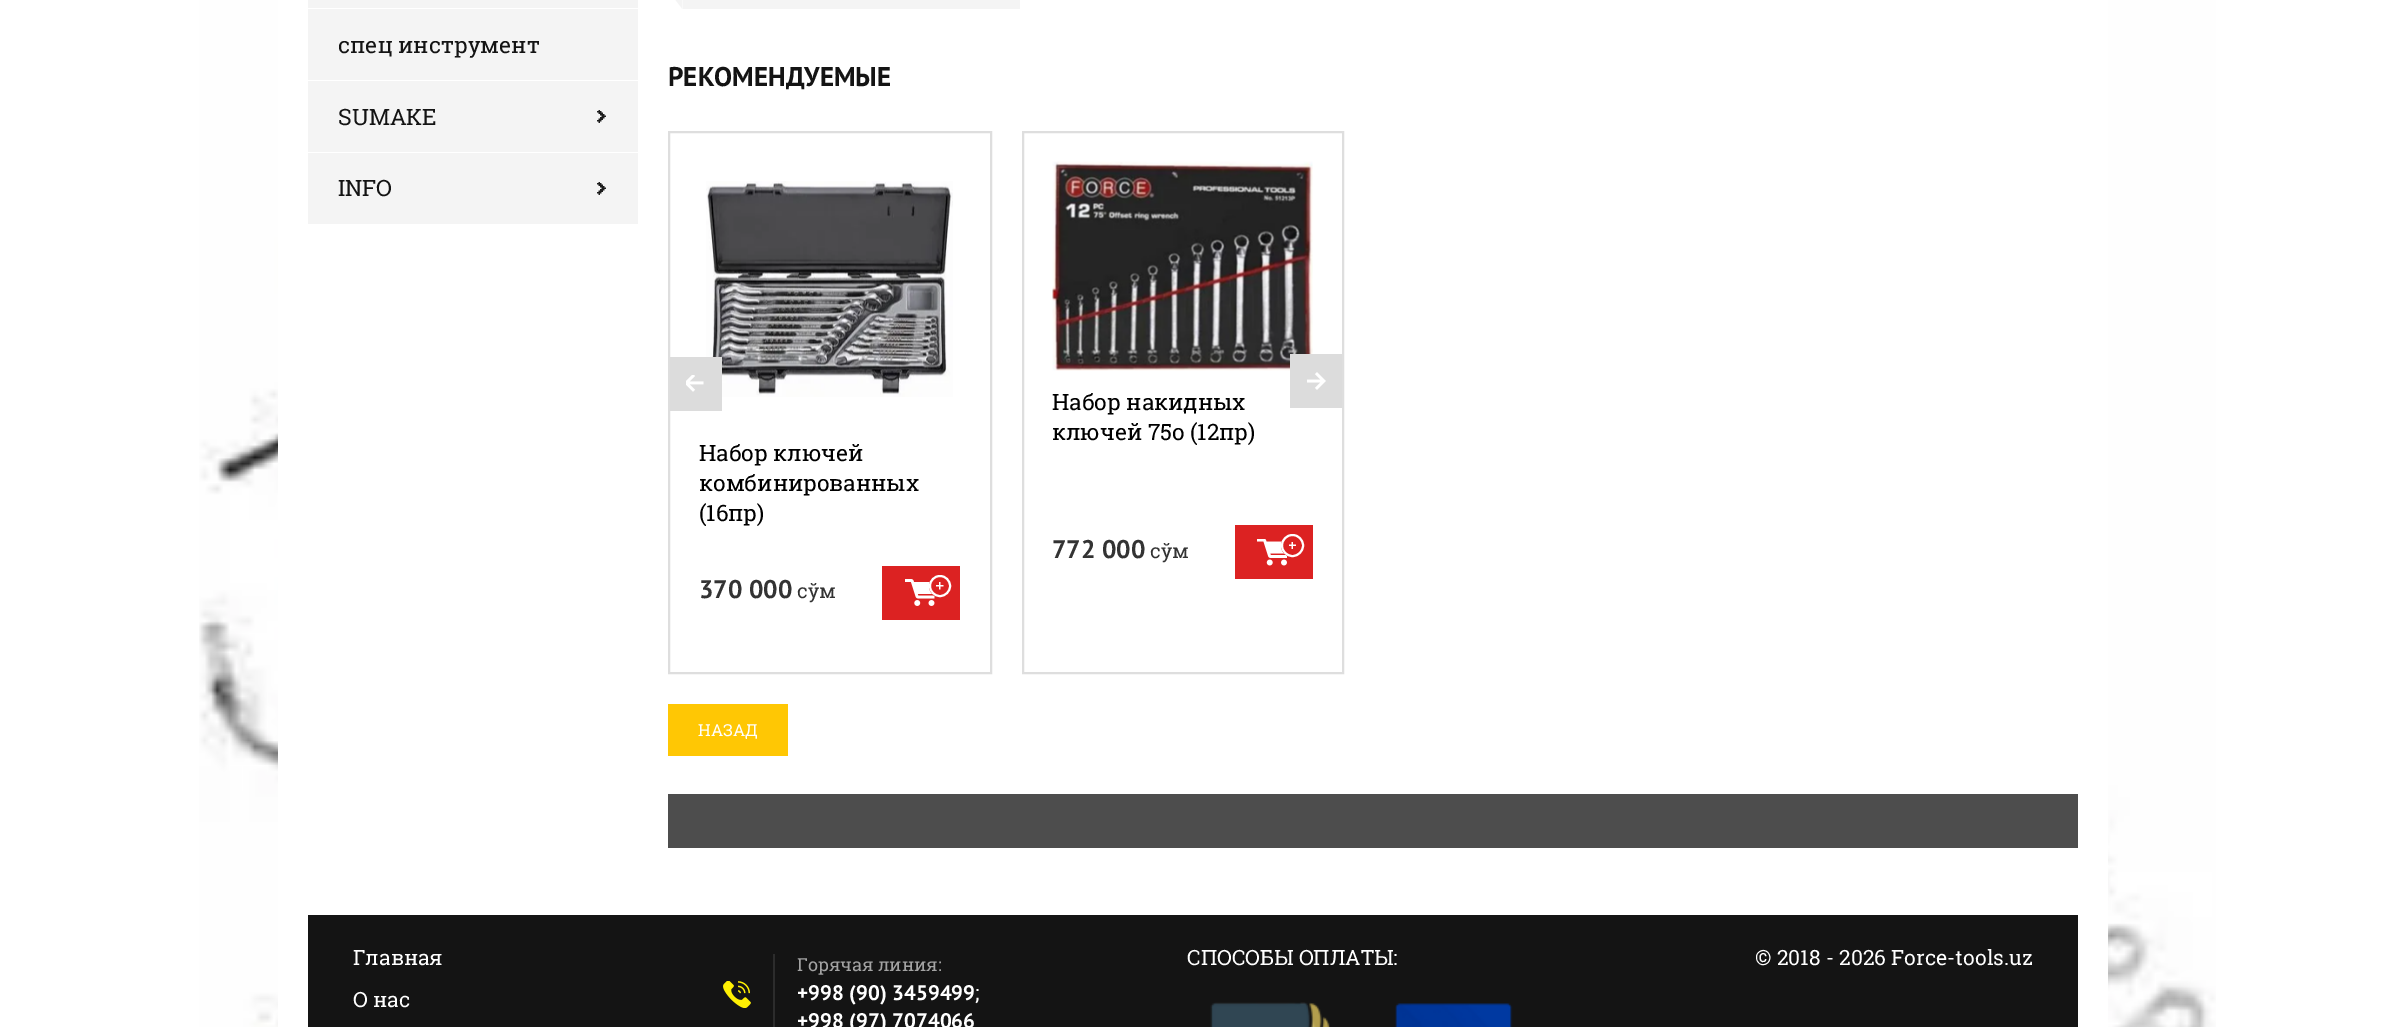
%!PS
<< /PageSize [2385 1027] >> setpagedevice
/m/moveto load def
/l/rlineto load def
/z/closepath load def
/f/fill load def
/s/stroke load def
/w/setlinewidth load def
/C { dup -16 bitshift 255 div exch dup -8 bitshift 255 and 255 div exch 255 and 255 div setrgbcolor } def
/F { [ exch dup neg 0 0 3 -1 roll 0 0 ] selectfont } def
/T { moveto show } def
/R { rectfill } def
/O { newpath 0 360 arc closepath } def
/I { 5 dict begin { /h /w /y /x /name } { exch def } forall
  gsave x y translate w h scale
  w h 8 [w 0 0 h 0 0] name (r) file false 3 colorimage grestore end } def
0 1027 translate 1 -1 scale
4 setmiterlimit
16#FFFFFF C
0 0 2385 1027 R
(1.rgb) 199 0 2017 1027 I
278 0 1830 1027 R
16#F4F4F4 C
308 0 330 8 R
308 9 330 71 R
/RobotoSlab-Regular 22.5 F
16#141414 C
(спец инструмент) 338 53 T
16#F4F4F4 C
308 81 330 71 R
16#141414 C
(SUMAKE) 338 125 T
(2.rgb) 597 110 9 13 I
16#F4F4F4 C
308 153 330 71 R
16#141414 C
(INFO) 338 196 T
(2.rgb) 597 182 9 13 I
16#F4F4F4 C
683 0 337 9 R
682.5 -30 m 0 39 l -15 -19.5 l z f
/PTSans-Bold 27 F
16#141414 C
(РЕКОМЕНДУЕМЫЕ) 668 86 T
16#DEDEDE C
2 w
669 132 322 541 rectstroke
(5.rgb) 706 181 247 216 I
16#DCDCDC C
670 357 52 54 R
(3.rgb) 686 375 18 17 I
16#DEDEDE C
1023 132 320 541 rectstroke
(8.rgb) 1052 161 261 210 I
16#DCDCDC C
1290 354 52 54 R
(4.rgb) 1307 372 19 18 I
/RobotoSlab-Regular 22.5 F
16#000000 C
(Набор ключей) 699 461 T
(комбинированных) 699 491 T
(\(16пр\)) 699 521 T
/PTSans-Bold 25.5 F
16#333333 C
(370 000) 699 598 T
/RobotoSlab-Regular 20 F
(сўм) 797 598 T
16#DC2222 C
882 566 78 54 R
(6.rgb) 905 579 30 27 I
940 586 11 O f
(7.rgb) 936 582 8 8 I
16#FFFFFF C
940 586 10 O s
/RobotoSlab-Regular 22.5 F
16#000000 C
(Набор накидных) 1052 410 T
(ключей 75о \(12пр\)) 1052 440 T
/PTSans-Bold 25.5 F
16#333333 C
(772 000) 1052 558 T
/RobotoSlab-Regular 20 F
(сўм) 1150 558 T
16#DC2222 C
1235 525 78 54 R
(9.rgb) 1257 539 30 27 I
1292.5 545.5 11.5 O f
(10.rgb) 1289 542 7 7 I
16#FFFFFF C
1292.5 545.5 10.5 O s
16#FFC704 C
668 704 120 52 R
/RobotoSlab-Regular 16.5 F
16#FFFFFF C
(НАЗАД) 698 736 T
16#4D4D4D C
668 794 1410 54 R
16#141414 C
308 915 1770 112 R
/RobotoSlab-Regular 21 F
16#FFFFFF C
(Главная) 353 965 T
(О нас) 353 1007 T
16#2C2C2C C
773 954 2 73 R
/RobotoSlab-Regular 18 F
16#A3A3A3 C
(Горячая линия:) 797 971 T
(11.rgb) 723 981 28 27 I
/PTSans-Bold 21 F
16#FFFFFF C
(+998 \(90\) 3459499) 797 1000 T
/RobotoSlab-Regular 21 F
(;) 975 1000 T
/PTSans-Bold 21 F
(+998 \(97\) 7074066) 797 1028 T
/RobotoSlab-Regular 21 F
(СПОСОБЫ ОПЛАТЫ:) 1187 965 T
(12.rgb) 1210 1002 120 25 I
(13.rgb) 1395 1003 118 24 I
(© 2018 - 2026 Force-tools.uz) 1755 965 T
showpage
